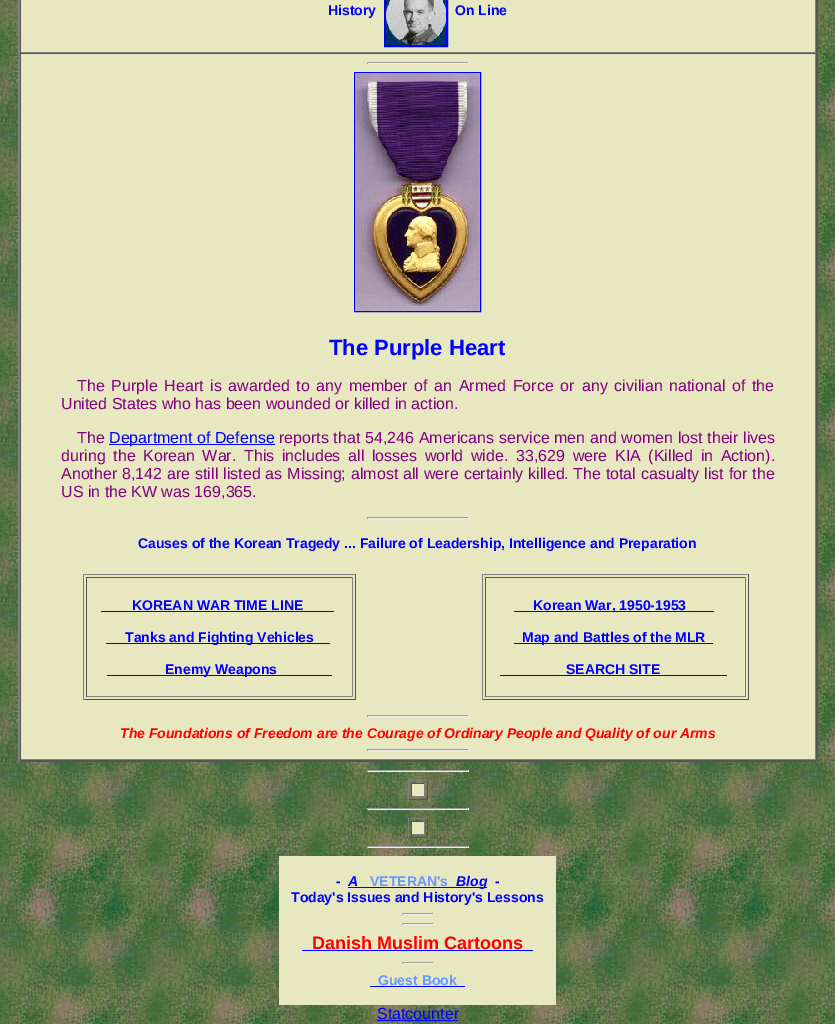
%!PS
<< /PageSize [835 1024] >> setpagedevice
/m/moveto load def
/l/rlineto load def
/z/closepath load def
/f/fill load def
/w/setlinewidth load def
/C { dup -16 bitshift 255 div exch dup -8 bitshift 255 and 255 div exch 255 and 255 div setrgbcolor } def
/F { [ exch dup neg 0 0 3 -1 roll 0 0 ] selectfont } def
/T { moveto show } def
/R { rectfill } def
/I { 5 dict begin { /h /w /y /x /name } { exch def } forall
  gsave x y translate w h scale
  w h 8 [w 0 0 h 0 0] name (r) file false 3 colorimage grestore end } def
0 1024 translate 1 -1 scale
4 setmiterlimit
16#FFFFFF C
0 0 835 1024 R
(1.rgb) 0 0 835 1024 I
16#E7E7C0 C
18 0 800 762 R
16#555555 C
818 -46 m 0 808 l -2 -2 l 0 -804 l z f
818 762 m -800 0 l 2 -2 l 796 0 l z f
16#808080 C
18 762 m 0 -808 l 2 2 l 0 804 l z f
815 0 1 53 R
20 52 796 1 R
16#555555 C
20 0 1 53 R
16#0000FF C
2 w
385 -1 62 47 rectstroke
/LiberationSans-Bold 14 F
(History) 328 15 T
(2.rgb) 386 0 60 45 I
(On Line) 455 15 T
16#555555 C
20 53 796 1 R
16#808080 C
815 53 1 707 R
20 759 796 1 R
16#555555 C
20 53 1 707 R
16#9F9F9F C
367 62 102 1 R
16#EEEEEE C
468 62 1 2 R
367 63 102 1 R
16#9F9F9F C
367 62 1 2 R
16#0000FF C
1 w
354.5 72.5 126 239 rectstroke
(3.rgb) 355 73 125 238 I
/LiberationSans-Bold 22 F
(The Purple Heart) 329 355 T
/LiberationSans-Regular 16 F
16#800080 C
77 391 m 2.25 0 32 (The Purple Heart is awarded to any member of an Armed Force or) widthshow
582 391 m 2.25 0 32 (any civilian national of the) widthshow
(United States who has been wounded or killed in action.) 61 409 T
(The) 77 443 T
16#0000FF C
109 444 166 1 R
(Department of Defense) 109 443 T
16#800080 C
279 443 m .25 0 32 (reports that 54,246 Americans service men and women lost their lives) widthshow
61 461 m 3.25 0 32 (during the Korean War. This includes all losses world wide. 33,629 were KIA \(Killed in Action\).) widthshow
61 479 m .5 0 32 (Another 8,142 are still listed as Missing; almost all were certainly killed.) widthshow
573 479 m .5 0 32 (The total casualty list for the) widthshow
(US in the KW was 169,365.) 61 497 T
16#9F9F9F C
367 517 102 1 R
16#EEEEEE C
468 517 1 2 R
367 518 102 1 R
16#9F9F9F C
367 517 1 2 R
/LiberationSans-Bold 14 F
16#0000FF C
(Causes of the Korean Tragedy ... Failure of Leadership, Intelligence and Preparation) 138 548 T
16#808080 C
83 574 273 1 R
16#555555 C
355 574 1 126 R
83 699 273 1 R
16#808080 C
83 574 1 126 R
16#555555 C
86 577 267 1 R
16#808080 C
352 577 1 120 R
86 696 267 1 R
16#555555 C
86 577 1 120 R
16#0000FF C
(KOREAN WAR TIME LINE) 132 610 T
101 611 233 1 R
106 643 224 1 R
(Tanks and Fighting Vehicles) 125 642 T
107 675 225 1 R
(Enemy Weapons) 165 674 T
16#808080 C
482 574 267 1 R
16#555555 C
748 574 1 126 R
482 699 267 1 R
16#808080 C
482 574 1 126 R
16#555555 C
485 577 261 1 R
16#808080 C
745 577 1 120 R
485 696 261 1 R
16#555555 C
485 577 1 120 R
16#0000FF C
514 611 200 1 R
(Korean War, 1950-1953) 533 610 T
514 643 199 1 R
(Map and Battles of the MLR) 522 642 T
(SEARCH SITE) 566 674 T
500 675 227 1 R
16#9F9F9F C
367 715 102 1 R
16#EEEEEE C
468 715 1 2 R
367 716 102 1 R
16#9F9F9F C
367 715 1 2 R
/LiberationSans-BoldItalic 14 F
16#FF0000 C
(The Foundations of Freedom are the Courage of Ordinary People and Quality of our Arms) 120 738 T
16#9F9F9F C
367 749 102 1 R
16#EEEEEE C
468 749 1 2 R
367 750 102 1 R
16#9F9F9F C
367 749 1 2 R
367 770 102 1 R
16#EEEEEE C
468 770 1 2 R
367 771 102 1 R
16#9F9F9F C
367 770 1 2 R
16#808080 C
408 780 20 1 R
16#555555 C
427 780 1 20 R
408 799 20 1 R
16#808080 C
408 780 1 20 R
16#E7E7C0 C
412 784 12 12 R
16#555555 C
411 783 14 1 R
16#808080 C
424 783 1 14 R
411 796 14 1 R
16#555555 C
411 783 1 14 R
16#9F9F9F C
367 808 102 1 R
16#EEEEEE C
468 808 1 2 R
367 809 102 1 R
16#9F9F9F C
367 808 1 2 R
16#808080 C
408 818 20 1 R
16#555555 C
427 818 1 20 R
408 837 20 1 R
16#808080 C
408 818 1 20 R
16#E7E7C0 C
412 822 12 12 R
16#555555 C
411 821 14 1 R
16#808080 C
424 821 1 14 R
411 834 14 1 R
16#555555 C
411 821 1 14 R
16#9F9F9F C
367 846 102 1 R
16#EEEEEE C
468 846 1 2 R
367 847 102 1 R
16#9F9F9F C
367 846 1 2 R
16#E7E7C0 C
279 856 277 149 R
/LiberationSans-Bold 14 F
16#0000FF C
(-) 336 886 T
/LiberationSans-BoldItalic 14 F
(A) 348 886 T
/LiberationSans-Bold 14 F
16#6698FF C
(VETERAN's) 370 886 T
16#0000FF C
348 887 139 1 R
/LiberationSans-BoldItalic 14 F
(Blog) 456 886 T
/LiberationSans-Bold 14 F
(-) 495 886 T
(Today's Issues and History's Lessons) 291 902 T
16#9F9F9F C
402 913 32 1 R
16#EEEEEE C
433 913 1 2 R
402 914 32 1 R
16#9F9F9F C
402 913 1 2 R
402 923 32 1 R
16#EEEEEE C
433 923 1 2 R
402 924 32 1 R
16#9F9F9F C
402 923 1 2 R
/LiberationSans-Bold 18 F
16#FF0000 C
(Danish Muslim Cartoons) 312 949 T
16#0000FF C
302 950 231 1 R
16#9F9F9F C
402 962 32 1 R
16#EEEEEE C
433 962 1 2 R
402 963 32 1 R
16#9F9F9F C
402 962 1 2 R
/LiberationSans-Bold 14 F
16#6698FF C
(Guest Book) 378 985 T
16#0000FF C
370 986 95 1 R
/LiberationSans-Regular 16 F
(Statcounter) 377 1019 T
377 1020 81 1 R
showpage
